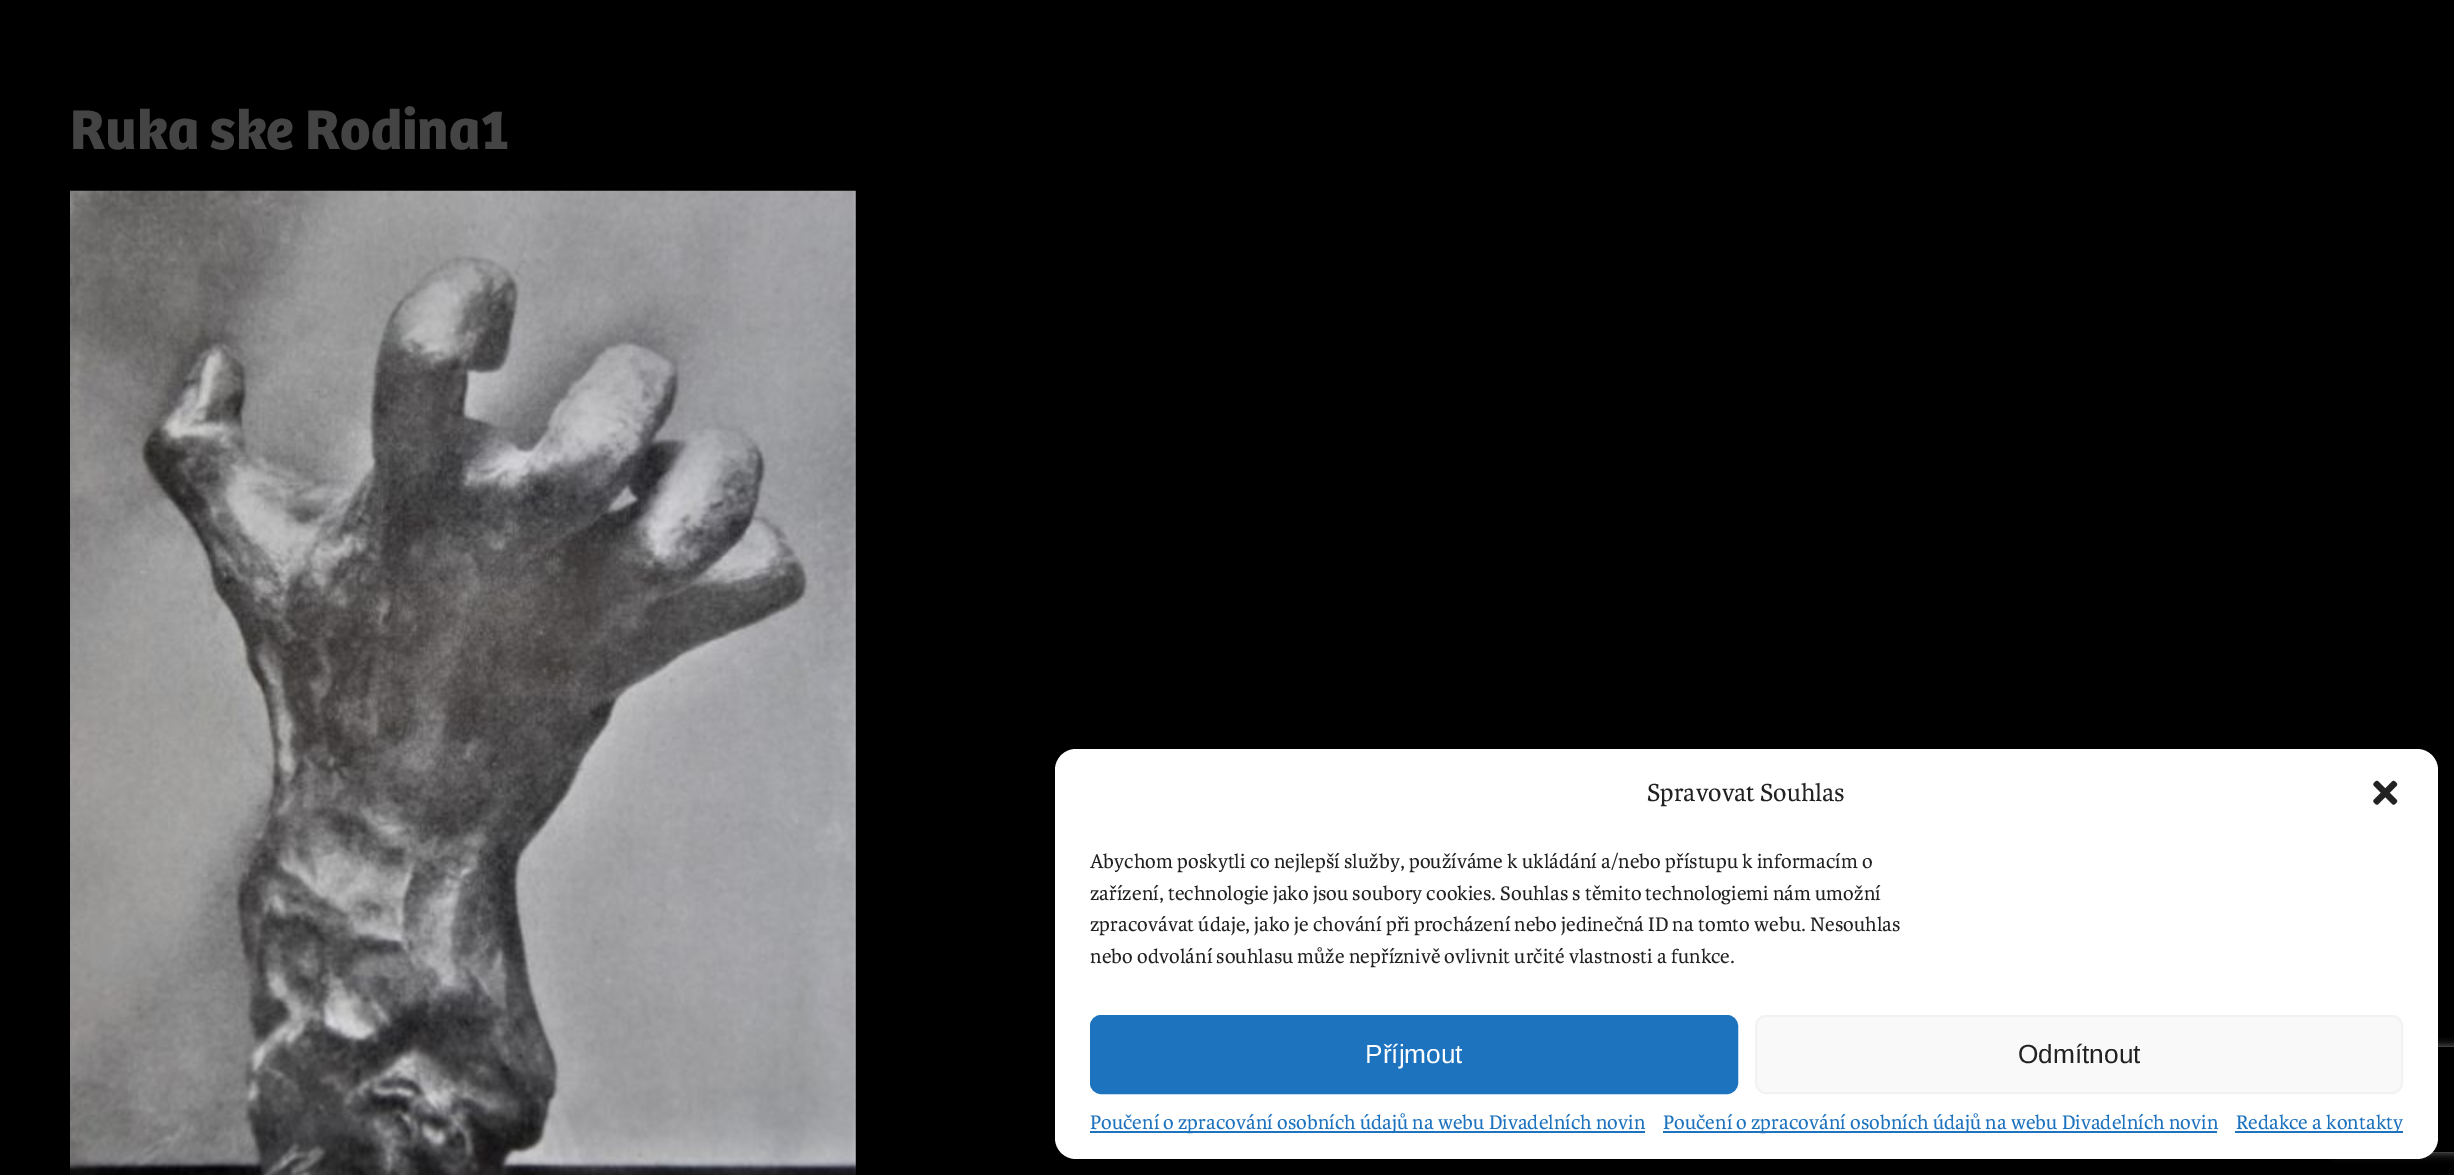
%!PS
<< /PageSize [2454 1175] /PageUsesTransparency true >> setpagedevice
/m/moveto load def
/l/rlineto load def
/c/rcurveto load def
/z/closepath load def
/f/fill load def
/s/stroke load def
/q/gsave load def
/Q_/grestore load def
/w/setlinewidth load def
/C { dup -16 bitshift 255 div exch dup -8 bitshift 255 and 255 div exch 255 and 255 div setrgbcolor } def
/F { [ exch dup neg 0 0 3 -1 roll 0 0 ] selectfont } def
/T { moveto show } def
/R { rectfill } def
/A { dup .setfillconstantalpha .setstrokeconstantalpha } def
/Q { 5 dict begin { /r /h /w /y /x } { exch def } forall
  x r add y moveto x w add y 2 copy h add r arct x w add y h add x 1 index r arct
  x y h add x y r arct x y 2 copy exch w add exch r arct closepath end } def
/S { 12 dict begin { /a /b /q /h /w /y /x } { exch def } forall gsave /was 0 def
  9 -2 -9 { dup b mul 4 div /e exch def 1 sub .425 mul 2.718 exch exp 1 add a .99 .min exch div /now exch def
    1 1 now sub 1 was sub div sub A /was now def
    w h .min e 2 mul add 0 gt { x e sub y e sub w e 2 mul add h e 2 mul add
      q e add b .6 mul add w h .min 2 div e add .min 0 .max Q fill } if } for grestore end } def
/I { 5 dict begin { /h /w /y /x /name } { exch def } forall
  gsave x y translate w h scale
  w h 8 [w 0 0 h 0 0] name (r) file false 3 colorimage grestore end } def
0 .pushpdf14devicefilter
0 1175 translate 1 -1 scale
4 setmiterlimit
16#000000 C
0 0 2454 1175 R
/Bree-Bold 58 F
16#444444 C
(Ruka ske Rodina1) 70 149 T
(1.rgb) 70 190 786 985 I
16#000000 C
1055 760 1383 409 21 5 .23 S
q
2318 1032 m 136 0 l 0 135 l -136 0 l z 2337 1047 m 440 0 l 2 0 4 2 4 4 c 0 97 l 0 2 -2 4 -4 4 c -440 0 l -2 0 -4 -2 -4 -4 c 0 -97 l 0 -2 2 -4 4 -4 c z eoclip newpath
16#808080 C
2333 1047 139 105 4 4.5 1 S
Q_
16#FFFFFF C
1055 749 1383 410 21 Q f
/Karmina-Regular 26.25 F
16#222222 C
(Spravovat Souhlas) 1647 801 T
(2.rgb) 2373 780 25 25 I
/Karmina-Regular 21 F
(Abychom poskytli co nejlepší služby, používáme k ukládání a/nebo přístupu k informacím o) 1090 868 T
(zařízení, technologie jako jsou soubory cookies. Souhlas s těmito technologiemi nám umožní) 1090 900 T
(zpracovávat údaje, jako je chování při procházení nebo jedinečná ID na tomto webu. Nesouhlas) 1090 931 T
(nebo odvolání souhlasu může nepříznivě ovlivnit určité vlastnosti a funkce.) 1090 963 T
16#1E73BE C
1091 1016 646 77 10 Q q f Q_
2 w
s
/LiberationSans-Regular 26.25 F
16#FFFFFF C
(Příjmout) 1365 1063 T
16#F9F9F9 C
1756 1016 646 77 10 Q q f Q_
16#F2F2F2 C
s
16#222222 C
(Odmítnout) 2018 1063 T
16#1E73BE C
1090 1131 555 2 R
/Karmina-Regular 21 F
(Poučení o zpracování osobních údajů na webu Divadelních novin) 1090 1129 T
1663 1131 554 2 R
(Poučení o zpracování osobních údajů na webu Divadelních novin) 1663 1129 T
2235 1131 168 2 R
(Redakce a kontakty) 2236 1129 T
.poppdf14devicefilter showpage
